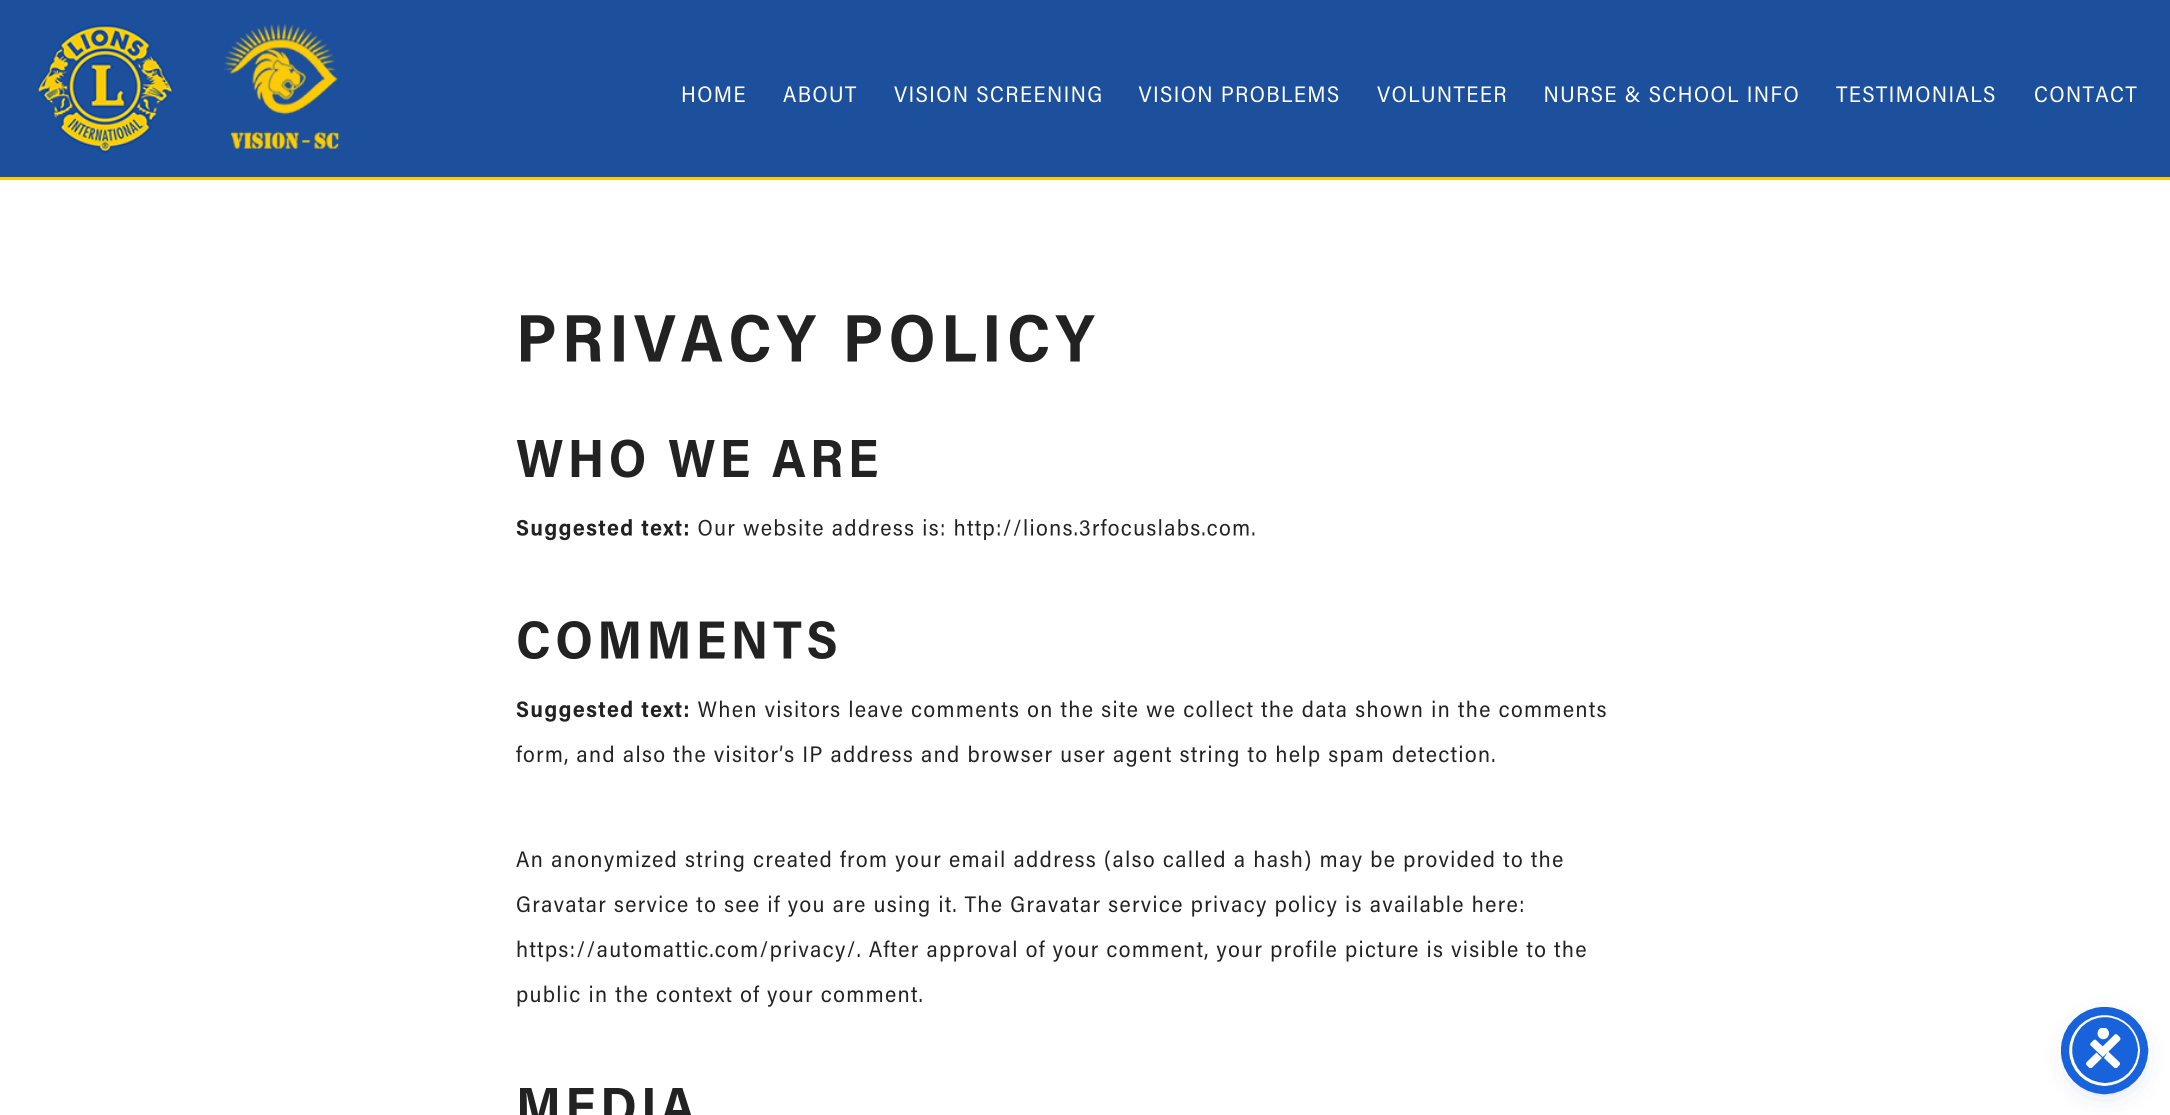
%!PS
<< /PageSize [2170 1115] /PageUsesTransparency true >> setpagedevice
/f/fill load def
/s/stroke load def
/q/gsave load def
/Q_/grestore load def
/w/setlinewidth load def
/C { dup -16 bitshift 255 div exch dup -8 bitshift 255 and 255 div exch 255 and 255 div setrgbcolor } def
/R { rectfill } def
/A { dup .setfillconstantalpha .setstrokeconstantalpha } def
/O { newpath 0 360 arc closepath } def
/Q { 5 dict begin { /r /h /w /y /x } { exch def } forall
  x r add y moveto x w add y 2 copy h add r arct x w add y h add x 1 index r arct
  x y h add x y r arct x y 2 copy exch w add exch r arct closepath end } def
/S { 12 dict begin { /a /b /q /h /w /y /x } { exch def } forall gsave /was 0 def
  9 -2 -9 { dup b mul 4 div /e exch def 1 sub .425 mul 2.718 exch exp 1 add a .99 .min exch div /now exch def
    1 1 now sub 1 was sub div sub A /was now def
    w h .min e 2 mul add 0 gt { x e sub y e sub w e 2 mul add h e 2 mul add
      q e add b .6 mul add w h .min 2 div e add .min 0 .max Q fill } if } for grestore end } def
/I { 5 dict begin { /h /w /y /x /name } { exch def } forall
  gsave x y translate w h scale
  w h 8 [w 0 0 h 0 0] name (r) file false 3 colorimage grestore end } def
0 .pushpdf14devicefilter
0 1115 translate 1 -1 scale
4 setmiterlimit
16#FFFFFF C
0 0 2170 1115 R
16#1C4F9C C
0 0 2170 177 R
16#FCCB06 C
0 177 2170 3 R
(1.rgb) 38 24 135 129 I
(2.rgb) 223 23 117 126 I
(3.rgb) 682 86 63 17 I
(4.rgb) 783 86 74 17 I
(5.rgb) 894 86 207 17 I
(6.rgb) 1138 86 201 17 I
(7.rgb) 1377 86 129 17 I
(8.rgb) 1545 86 253 17 I
(9.rgb) 1836 86 159 17 I
(10.rgb) 2035 86 102 17 I
(11.rgb) 521 314 574 49 I
(12.rgb) 516 439 361 39 I
(13.rgb) 516 519 172 22 I
(14.rgb) 698 518 557 22 I
(15.rgb) 518 621 318 38 I
(16.rgb) 516 700 172 22 I
(17.rgb) 698 700 908 18 I
(18.rgb) 516 745 979 22 I
(19.rgb) 516 850 1047 22 I
(20.rgb) 517 895 1006 22 I
(21.rgb) 517 940 1069 22 I
(22.rgb) 517 985 405 22 I
(23.rgb) 520 1088 171 27 I
16#5D6494 C
2069 1017 72 72 36 3 .2 S
16#252C61 C
2069 1022 72 72 36 11 .15 S
16#1863DC C
2105 1050 34.5 O q f Q_
16#FFFFFF C
3 w
s
16#1863DC C
8 w
2104.5 1050.5 39.5 O s
(24.rgb) 2086 1028 35 40 I
.poppdf14devicefilter showpage
